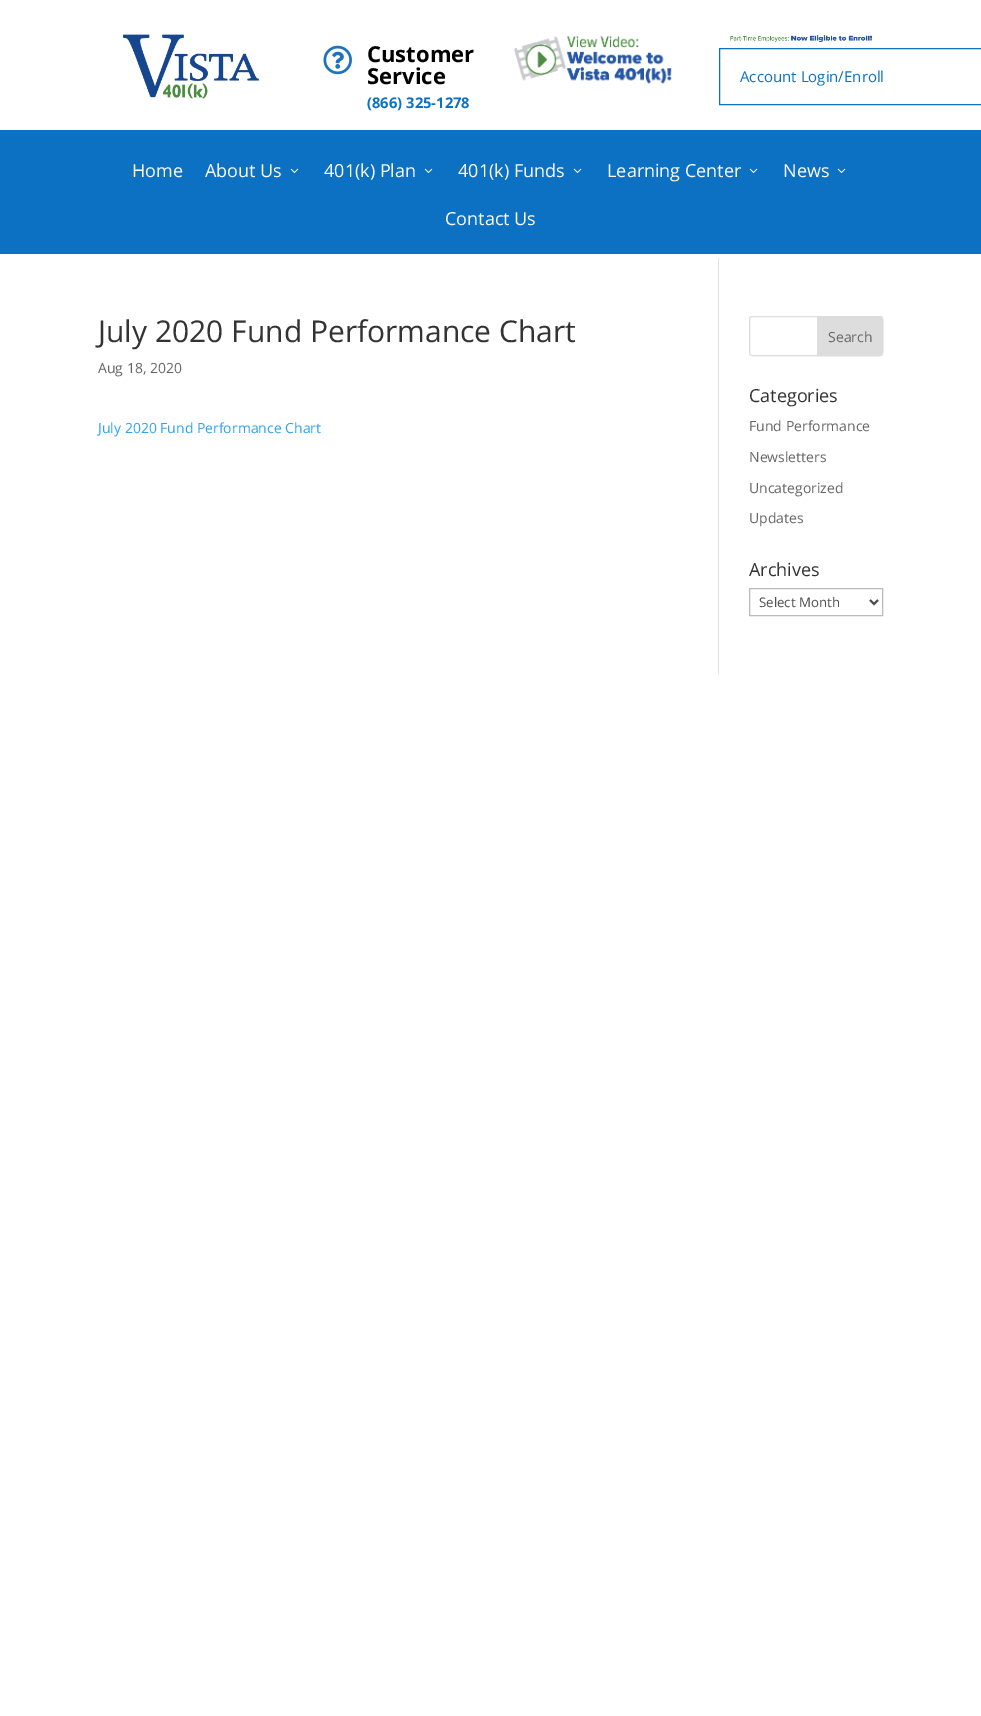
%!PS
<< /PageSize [981 1716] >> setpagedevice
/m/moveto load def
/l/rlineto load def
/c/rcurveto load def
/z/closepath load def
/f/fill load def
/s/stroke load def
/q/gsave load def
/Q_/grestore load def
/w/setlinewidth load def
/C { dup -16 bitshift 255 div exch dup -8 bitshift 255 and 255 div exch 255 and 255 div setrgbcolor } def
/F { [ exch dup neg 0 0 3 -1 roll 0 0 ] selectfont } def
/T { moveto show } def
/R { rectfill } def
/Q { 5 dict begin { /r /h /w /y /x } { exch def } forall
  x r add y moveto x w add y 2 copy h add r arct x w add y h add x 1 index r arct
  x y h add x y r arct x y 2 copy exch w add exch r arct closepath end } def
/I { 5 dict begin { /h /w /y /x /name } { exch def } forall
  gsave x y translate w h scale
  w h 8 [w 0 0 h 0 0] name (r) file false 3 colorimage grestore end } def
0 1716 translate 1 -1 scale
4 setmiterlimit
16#FFFFFF C
0 0 981 1716 R
(1.rgb) 123 34 136 65 I
(2.rgb) 323 45 29 30 I
/OpenSans-Bold 22 F
16#000000 C
(Customer) 367 62 T
(Service) 367 84 T
/OpenSans-Bold 14.75 F
16#0C71C3 C
(\(866\) 325-1278) 367 108 T
(3.rgb) 514 35 158 49 I
(4.rgb) 730 35 142 7 I
719.5 48.5 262 56 rectstroke
/OpenSans-Regular 15 F
(Account Login/Enroll) 740 82 T
0 130 981 124 R
/OpenSans-Regular 18 F
16#FFFFFF C
(Home) 132 177 T
(About Us) 205 177 T
(5.rgb) 290 168 9 5 I
(401\(k\) Plan) 324 177 T
(5.rgb) 424 168 9 5 I
(401\(k\) Funds) 458 177 T
(5.rgb) 573 168 9 5 I
(Learning Center) 607 177 T
(5.rgb) 749 168 9 5 I
(News) 783 177 T
(5.rgb) 837 168 9 5 I
(Contact Us) 445 225 T
16#E2E2E2 C
718 258 1 416 R
/OpenSans-Regular 30 F
16#333333 C
(July 2020 Fund Performance Chart) 98 342 T
/OpenSans-Regular 14 F
16#666666 C
(Aug 18, 2020) 98 373 T
16#2EA3F2 C
(July 2020 Fund Performance Chart) 98 433 T
16#DDDDDD C
749.5 316.5 133 39 2.5 Q s
817.5 316.5 m 62.5 0 l 1.5 0 2.5 1 2.5 2.5 c 0 34 l 0 1.5 -1 2.5 -2.5 2.5 c -62.5 0 l z q f Q_
s
16#666666 C
(Search) 828 342 T
/OpenSans-Regular 18 F
16#333333 C
(Categories) 749 402 T
/OpenSans-Regular 14 F
16#666666 C
(Fund Performance) 749 431 T
(Newsletters) 749 462 T
(Uncategorized) 749 493 T
(Updates) 749 523 T
/OpenSans-Regular 18 F
16#333333 C
(Archives) 749 576 T
16#BBBBBB C
749.5 588.5 133 27 rectstroke
16#4E4E4E C
2 w
870 600 m 4 4 l 4 -4 l s
/OpenSans-Regular 13.25 F
(Select Month) 759 607 T
showpage
